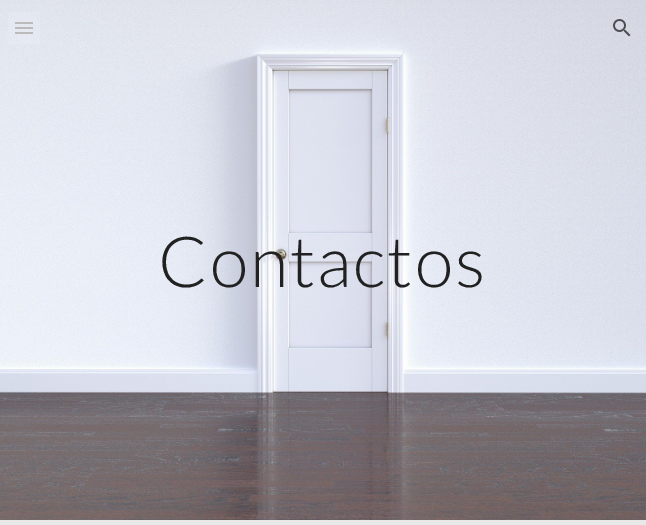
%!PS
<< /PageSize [646 525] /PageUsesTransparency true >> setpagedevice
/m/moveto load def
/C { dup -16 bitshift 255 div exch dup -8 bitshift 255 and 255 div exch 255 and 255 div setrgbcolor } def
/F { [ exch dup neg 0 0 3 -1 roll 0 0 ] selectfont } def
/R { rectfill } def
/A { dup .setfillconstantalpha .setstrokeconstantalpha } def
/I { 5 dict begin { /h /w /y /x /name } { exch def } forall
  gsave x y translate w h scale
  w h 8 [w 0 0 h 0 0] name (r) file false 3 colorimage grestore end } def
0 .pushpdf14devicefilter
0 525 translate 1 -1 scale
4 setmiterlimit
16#FFFFFF C
0 0 646 525 R
(2.rgb) 0 0 646 520 I
16#B2B2B2 C
15 22 18 2 R
15 27 18 2 R
15 32 18 2 R
0.12 A
16#FFFFFF C
8 12 32 32 R
1 A
(1.rgb) 613 19 18 18 I
/Lato-Light 70.5 F
16#212121 C
158 287 m 2 0 (Contactos) ashow
16#E8E8E8 C
0 520 646 5 R
.poppdf14devicefilter showpage
